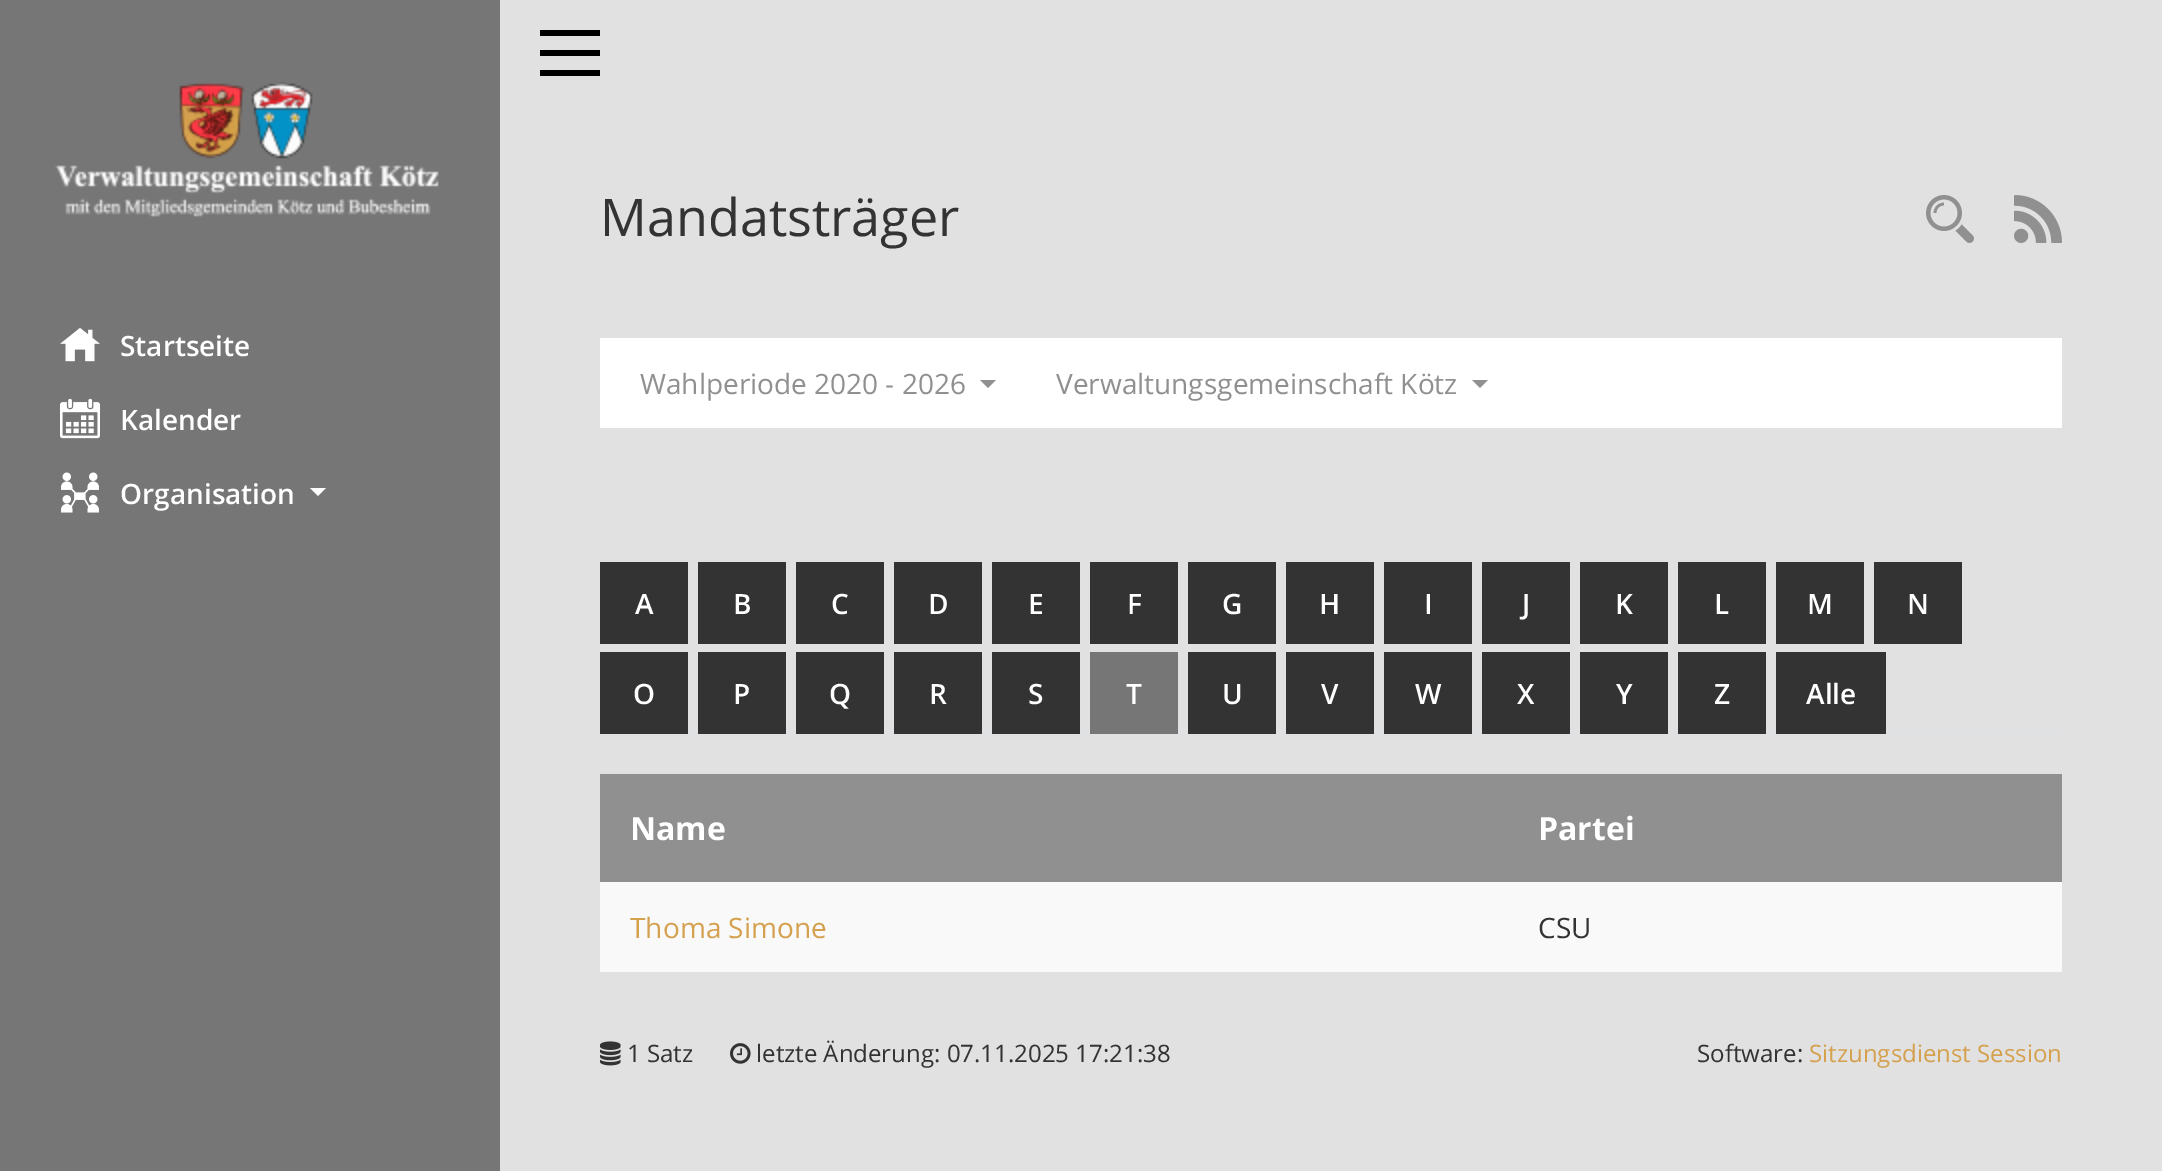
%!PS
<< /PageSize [2162 1171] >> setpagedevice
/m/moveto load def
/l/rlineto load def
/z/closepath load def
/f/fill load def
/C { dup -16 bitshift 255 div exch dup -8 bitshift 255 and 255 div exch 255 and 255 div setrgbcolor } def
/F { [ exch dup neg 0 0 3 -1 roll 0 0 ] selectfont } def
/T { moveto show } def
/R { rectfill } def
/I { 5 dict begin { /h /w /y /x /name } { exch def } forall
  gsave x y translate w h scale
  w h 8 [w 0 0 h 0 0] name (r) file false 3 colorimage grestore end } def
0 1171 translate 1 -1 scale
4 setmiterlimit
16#E1E1E1 C
0 0 2162 1171 R
16#767676 C
0 0 500 1171 R
(1.rgb) 55 82 384 135 I
(2.rgb) 60 328 40 34 I
/OpenSans-SemiBold 28 F
16#FFFFFF C
(Startseite) 120 356 T
(3.rgb) 60 398 40 41 I
(Kalender) 120 430 T
(4.rgb) 61 472 38 41 I
(Organisation) 120 504 T
310 488 m 16 0 l -8 8 l z f
16#000000 C
540 30 60 6 R
540 50 60 6 R
540 70 60 6 R
/OpenSans-Regular 52 F
16#333333 C
(Mandatsträger) 600 236 T
(5.rgb) 1926 195 48 48 I
(6.rgb) 2014 195 48 48 I
16#FFFFFF C
600 338 1462 90 R
/OpenSans-Regular 28 F
16#909090 C
(Wahlperiode 2020 - 2026) 640 394 T
980 380 m 16 0 l -8 8 l z f
(Verwaltungsgemeinschaft Kötz) 1056 394 T
1472 380 m 16 0 l -8 8 l z f
16#DEE2E6 C
688 732 1374 2 R
16#333333 C
600 562 88 82 R
/OpenSans-SemiBold 28 F
16#FFFFFF C
(A) 635 614 T
16#333333 C
698 562 88 82 R
16#FFFFFF C
(B) 733 614 T
16#333333 C
796 562 88 82 R
16#FFFFFF C
(C) 831 614 T
16#333333 C
894 562 88 82 R
16#FFFFFF C
(D) 928 614 T
16#333333 C
992 562 88 82 R
16#FFFFFF C
(E) 1028 614 T
16#333333 C
1090 562 88 82 R
16#FFFFFF C
(F) 1127 614 T
16#333333 C
1188 562 88 82 R
16#FFFFFF C
(G) 1222 614 T
16#333333 C
1286 562 88 82 R
16#FFFFFF C
(H) 1319 614 T
16#333333 C
1384 562 88 82 R
16#FFFFFF C
(I) 1424 614 T
16#333333 C
1482 562 88 82 R
16#FFFFFF C
(J) 1522 614 T
16#333333 C
1580 562 88 82 R
16#FFFFFF C
(K) 1615 614 T
16#333333 C
1678 562 88 82 R
16#FFFFFF C
(L) 1714 614 T
16#333333 C
1776 562 88 82 R
16#FFFFFF C
(M) 1807 614 T
16#333333 C
1874 562 88 82 R
16#FFFFFF C
(N) 1907 614 T
16#333333 C
600 652 88 82 R
16#FFFFFF C
(O) 633 704 T
16#333333 C
698 652 88 82 R
16#FFFFFF C
(P) 733 704 T
16#333333 C
796 652 88 82 R
16#FFFFFF C
(Q) 829 704 T
16#333333 C
894 652 88 82 R
16#FFFFFF C
(R) 929 704 T
16#333333 C
992 652 88 82 R
16#FFFFFF C
(S) 1028 704 T
16#767676 C
1090 652 88 82 R
16#FFFFFF C
(T) 1126 704 T
16#333333 C
1188 652 88 82 R
16#FFFFFF C
(U) 1222 704 T
16#333333 C
1286 652 88 82 R
16#FFFFFF C
(V) 1321 704 T
16#333333 C
1384 652 88 82 R
16#FFFFFF C
(W) 1415 704 T
16#333333 C
1482 652 88 82 R
16#FFFFFF C
(X) 1517 704 T
16#333333 C
1580 652 88 82 R
16#FFFFFF C
(Y) 1616 704 T
16#333333 C
1678 652 88 82 R
16#FFFFFF C
(Z) 1714 704 T
16#333333 C
1776 652 110 82 R
16#FFFFFF C
(Alle) 1806 704 T
16#909090 C
600 774 1462 108 R
/OpenSans-Bold 32 F
16#FFFFFF C
(Name) 630 840 T
(Partei) 1538 840 T
16#F9F9F9 C
600 882 1462 90 R
/OpenSans-Regular 28 F
16#D5A14F C
(Thoma Simone) 630 938 T
16#333333 C
(CSU) 1538 938 T
(7.rgb) 600 1041 21 25 I
/OpenSans-Regular 24 F
(1 Satz) 627 1062 T
(8.rgb) 730 1043 21 21 I
(letzte Änderung: 07.11.2025 17:21:38) 756 1062 T
(Software:) 1697 1062 T
16#D5A14F C
(Sitzungsdienst Session) 1809 1062 T
showpage
